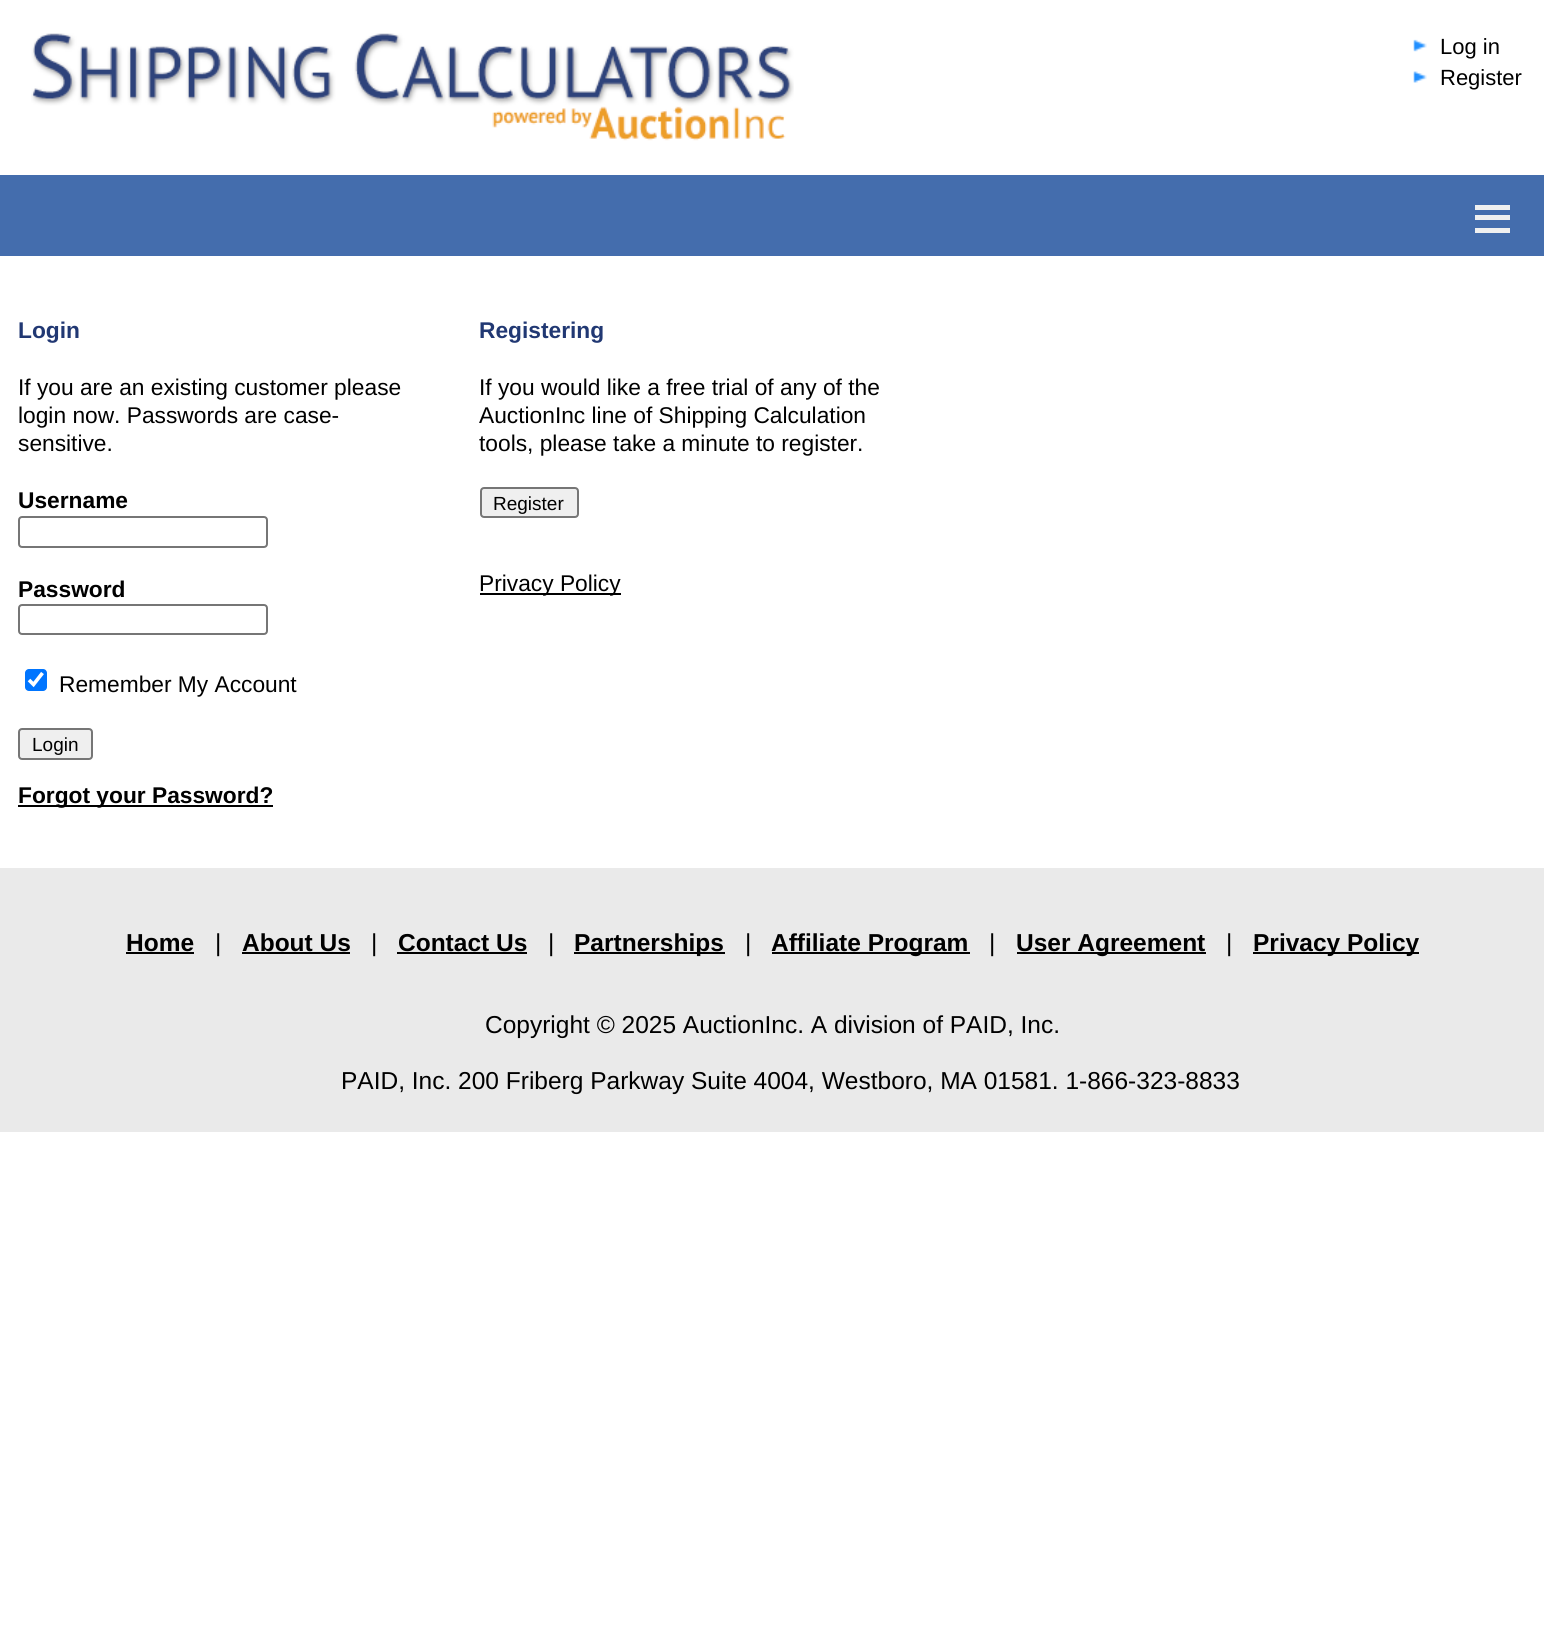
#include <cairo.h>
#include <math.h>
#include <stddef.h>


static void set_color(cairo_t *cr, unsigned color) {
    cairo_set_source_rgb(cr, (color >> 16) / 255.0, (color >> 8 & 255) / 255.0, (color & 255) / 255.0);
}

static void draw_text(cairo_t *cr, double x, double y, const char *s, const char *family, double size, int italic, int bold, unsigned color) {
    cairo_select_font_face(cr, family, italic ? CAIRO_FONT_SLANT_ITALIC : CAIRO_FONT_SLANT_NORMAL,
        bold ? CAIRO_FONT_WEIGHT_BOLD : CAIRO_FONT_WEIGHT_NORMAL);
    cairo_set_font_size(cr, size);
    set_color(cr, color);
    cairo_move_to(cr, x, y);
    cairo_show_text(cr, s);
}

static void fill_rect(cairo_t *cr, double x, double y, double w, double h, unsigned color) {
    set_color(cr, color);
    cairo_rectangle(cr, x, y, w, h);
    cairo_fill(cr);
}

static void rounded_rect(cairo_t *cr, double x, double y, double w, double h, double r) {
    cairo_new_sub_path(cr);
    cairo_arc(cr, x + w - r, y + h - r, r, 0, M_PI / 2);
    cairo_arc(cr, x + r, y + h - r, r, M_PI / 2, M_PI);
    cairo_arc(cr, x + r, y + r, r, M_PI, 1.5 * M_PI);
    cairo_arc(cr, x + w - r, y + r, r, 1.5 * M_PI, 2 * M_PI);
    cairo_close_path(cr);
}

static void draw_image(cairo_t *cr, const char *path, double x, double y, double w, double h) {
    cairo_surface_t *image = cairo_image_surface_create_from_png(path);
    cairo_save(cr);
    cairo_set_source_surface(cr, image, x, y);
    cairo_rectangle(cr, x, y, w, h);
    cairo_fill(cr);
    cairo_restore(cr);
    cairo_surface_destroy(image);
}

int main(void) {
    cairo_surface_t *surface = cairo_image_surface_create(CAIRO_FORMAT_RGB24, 1544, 1645);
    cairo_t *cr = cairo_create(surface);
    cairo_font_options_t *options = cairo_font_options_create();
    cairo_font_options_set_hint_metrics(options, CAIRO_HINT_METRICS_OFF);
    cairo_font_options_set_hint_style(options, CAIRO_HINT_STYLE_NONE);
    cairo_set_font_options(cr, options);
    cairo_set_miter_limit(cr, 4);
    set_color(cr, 0xFFFFFF);
    cairo_paint(cr);
    draw_image(cr, "assets/img1.png", 31, 33, 763, 108);
    draw_image(cr, "assets/img2.png", 1413, 39, 14, 13);
    draw_text(cr, 1440, 54, "Log in", "Liberation Sans", 22, 0, 0, 0x000000);
    draw_image(cr, "assets/img3.png", 1413, 71, 14, 12);
    draw_text(cr, 1440, 85, "Register", "Liberation Sans", 22, 0, 0, 0x000000);
    fill_rect(cr, 0, 175, 1544, 81, 0x446DAD);
    fill_rect(cr, 1475, 205, 35, 5, 0xF0F0F0);
    fill_rect(cr, 1475, 215, 35, 5, 0xF0F0F0);
    fill_rect(cr, 1475, 228, 35, 5, 0xF0F0F0);
    draw_text(cr, 18, 338, "Login", "Liberation Sans", 22.75, 0, 1, 0x213873);
    draw_text(cr, 18, 395, "If you are an existing customer please", "Liberation Sans", 22.75, 0, 0, 0x000000);
    draw_text(cr, 18, 423, "login now. Passwords are case-", "Liberation Sans", 22.75, 0, 0, 0x000000);
    draw_text(cr, 18, 451, "sensitive.", "Liberation Sans", 22.75, 0, 0, 0x000000);
    draw_text(cr, 18, 508, "Username", "Liberation Sans", 22.75, 0, 1, 0x000000);
    rounded_rect(cr, 19, 517, 248, 30, 3);
    set_color(cr, 0x767676);
    cairo_stroke(cr);
    draw_text(cr, 18, 597, "Password", "Liberation Sans", 22.75, 0, 1, 0x000000);
    rounded_rect(cr, 19, 605, 248, 29, 3);
    set_color(cr, 0x767676);
    cairo_stroke(cr);
    set_color(cr, 0x0075FF);
    rounded_rect(cr, 25, 669, 22, 22, 4);
    cairo_fill(cr);
    cairo_new_path(cr);
    cairo_move_to(cr, 29, 680);
    cairo_line_to(cr, 33.5, 684.5);
    cairo_line_to(cr, 42.5, 673);
    set_color(cr, 0xFFFFFF);
    cairo_set_line_width(cr, 3.6);
    cairo_stroke(cr);
    draw_text(cr, 59, 692, "Remember My Account", "Liberation Sans", 22.75, 0, 0, 0x000000);
    set_color(cr, 0xEFEFEF);
    rounded_rect(cr, 19, 729, 73, 30, 3);
    cairo_fill_preserve(cr);
    set_color(cr, 0x767676);
    cairo_set_line_width(cr, 2);
    cairo_stroke(cr);
    draw_text(cr, 32, 751, "Login", "Liberation Sans", 19, 0, 0, 0x000000);
    fill_rect(cr, 18, 805, 255, 2, 0x000000);
    draw_text(cr, 18, 803, "Forgot your Password?", "Liberation Sans", 22.75, 0, 1, 0x000000);
    draw_text(cr, 479, 338, "Registering", "Liberation Sans", 22.75, 0, 1, 0x213873);
    draw_text(cr, 479, 395, "If you would like a free trial of any of the", "Liberation Sans", 22.75, 0, 0, 0x000000);
    draw_text(cr, 479, 423, "AuctionInc line of Shipping Calculation", "Liberation Sans", 22.75, 0, 0, 0x000000);
    draw_text(cr, 479, 451, "tools, please take a minute to register.", "Liberation Sans", 22.75, 0, 0, 0x000000);
    set_color(cr, 0xEFEFEF);
    rounded_rect(cr, 481, 488, 97, 29, 3);
    cairo_fill_preserve(cr);
    set_color(cr, 0x767676);
    cairo_stroke(cr);
    draw_text(cr, 493, 510, "Register", "Liberation Sans", 19, 0, 0, 0x000000);
    fill_rect(cr, 480, 593, 141, 2, 0x000000);
    draw_text(cr, 479, 591, "Privacy Policy", "Liberation Sans", 22.75, 0, 0, 0x000000);
    fill_rect(cr, 0, 868, 1544, 264, 0xEAEAEA);
    draw_text(cr, 126, 951, "Home", "Liberation Sans", 24.5, 0, 1, 0x000000);
    fill_rect(cr, 126, 952, 68, 2, 0x000000);
    draw_text(cr, 215, 951, "|", "Liberation Sans", 24.5, 0, 0, 0x000000);
    draw_text(cr, 242, 951, "About Us", "Liberation Sans", 24.5, 0, 1, 0x000000);
    fill_rect(cr, 242, 952, 108, 2, 0x000000);
    draw_text(cr, 371, 951, "|", "Liberation Sans", 24.5, 0, 0, 0x000000);
    draw_text(cr, 398, 951, "Contact Us", "Liberation Sans", 24.5, 0, 1, 0x000000);
    fill_rect(cr, 397, 952, 130, 2, 0x000000);
    draw_text(cr, 548, 951, "|", "Liberation Sans", 24.5, 0, 0, 0x000000);
    fill_rect(cr, 574, 952, 151, 2, 0x000000);
    draw_text(cr, 574, 951, "Partnerships", "Liberation Sans", 24.5, 0, 1, 0x000000);
    draw_text(cr, 745, 951, "|", "Liberation Sans", 24.5, 0, 0, 0x000000);
    fill_rect(cr, 772, 952, 198, 2, 0x000000);
    draw_text(cr, 771, 951, "Affiliate Program", "Liberation Sans", 24.5, 0, 1, 0x000000);
    draw_text(cr, 989, 951, "|", "Liberation Sans", 24.5, 0, 0, 0x000000);
    fill_rect(cr, 1017, 952, 189, 2, 0x000000);
    draw_text(cr, 1016, 951, "User Agreement", "Liberation Sans", 24.5, 0, 1, 0x000000);
    draw_text(cr, 1226, 951, "|", "Liberation Sans", 24.5, 0, 0, 0x000000);
    fill_rect(cr, 1253, 952, 166, 2, 0x000000);
    draw_text(cr, 1253, 951, "Privacy Policy", "Liberation Sans", 24.5, 0, 1, 0x000000);
    draw_text(cr, 485, 1033, "Copyright © 2025 AuctionInc. A division of PAID, Inc.", "Liberation Sans", 24.5, 0, 0, 0x000000);
    draw_text(cr, 341, 1089, "PAID, Inc. 200 Friberg Parkway Suite 4004, Westboro, MA 01581. 1-866-323-8833", "Liberation Sans", 24.5, 0, 0, 0x000000);
    cairo_surface_write_to_png(surface, "output.png");
    cairo_font_options_destroy(options);
    cairo_destroy(cr);
    cairo_surface_destroy(surface);
    return 0;
}
